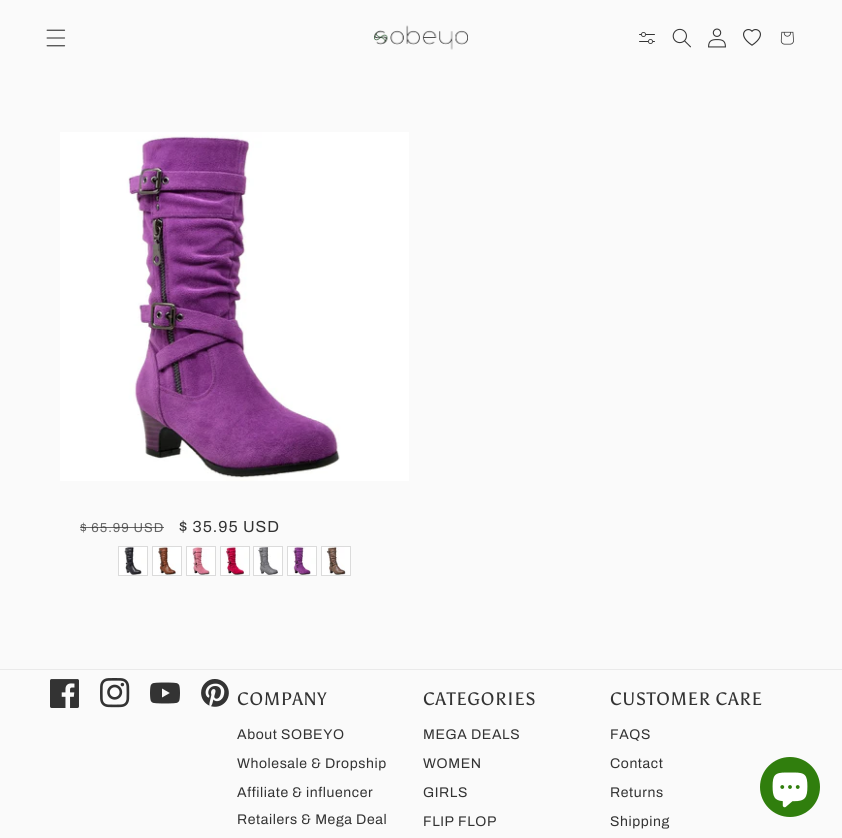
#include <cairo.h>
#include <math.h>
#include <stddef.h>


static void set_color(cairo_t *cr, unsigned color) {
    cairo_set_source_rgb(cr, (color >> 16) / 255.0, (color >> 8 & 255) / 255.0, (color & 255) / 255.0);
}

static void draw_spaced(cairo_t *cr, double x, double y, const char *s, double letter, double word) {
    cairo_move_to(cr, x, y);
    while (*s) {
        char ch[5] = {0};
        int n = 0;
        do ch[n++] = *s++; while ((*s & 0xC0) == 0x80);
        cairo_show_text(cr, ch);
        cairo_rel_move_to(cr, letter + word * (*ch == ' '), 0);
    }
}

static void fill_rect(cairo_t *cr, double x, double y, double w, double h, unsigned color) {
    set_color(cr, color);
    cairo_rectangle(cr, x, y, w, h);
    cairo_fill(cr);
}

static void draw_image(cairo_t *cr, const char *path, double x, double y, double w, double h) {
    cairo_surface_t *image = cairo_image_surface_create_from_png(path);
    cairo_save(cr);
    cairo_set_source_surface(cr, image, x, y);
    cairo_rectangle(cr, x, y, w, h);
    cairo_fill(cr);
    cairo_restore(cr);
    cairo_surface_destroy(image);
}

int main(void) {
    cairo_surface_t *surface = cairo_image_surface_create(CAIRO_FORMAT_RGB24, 842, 838);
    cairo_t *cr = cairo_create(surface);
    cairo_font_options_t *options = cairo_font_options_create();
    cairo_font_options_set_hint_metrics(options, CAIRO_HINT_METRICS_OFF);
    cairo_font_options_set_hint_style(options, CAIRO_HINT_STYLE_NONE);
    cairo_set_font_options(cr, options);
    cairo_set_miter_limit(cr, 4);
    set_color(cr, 0xFAFAFA);
    cairo_paint(cr);
    draw_image(cr, "assets/img1.png", 46, 29, 20, 18);
    draw_image(cr, "assets/img2.png", 374, 25, 94, 25);
    draw_image(cr, "assets/img3.png", 639, 32, 16, 12);
    draw_image(cr, "assets/img4.png", 672, 28, 19, 20);
    draw_image(cr, "assets/img5.png", 708, 28, 18, 20);
    draw_image(cr, "assets/img6.png", 743, 29, 18, 17);
    draw_image(cr, "assets/img7.png", 780, 31, 14, 14);
    draw_image(cr, "assets/img8.png", 60, 132, 349, 349);
    cairo_select_font_face(cr, "Archivo", CAIRO_FONT_SLANT_NORMAL, CAIRO_FONT_WEIGHT_NORMAL);
    cairo_set_font_size(cr, 13);
    set_color(cr, 0x656565);
    draw_spaced(cr, 80, 532, "$ 65.99 USD", 1, 0);
    cairo_set_source_rgba(cr, 0.2, 0.2, 0.2, 0.75);
    cairo_rectangle(cr, 80, 527, 84, 1);
    cairo_fill(cr);
    cairo_set_font_size(cr, 16);
    set_color(cr, 0x333333);
    draw_spaced(cr, 179, 532, "$ 35.95 USD", 1, 0);
    cairo_rectangle(cr, 118.5, 546.5, 29, 29);
    set_color(cr, 0xDBDBDB);
    cairo_set_line_width(cr, 1);
    cairo_stroke(cr);
    draw_image(cr, "assets/img9.png", 119, 547, 28, 28);
    cairo_rectangle(cr, 152.5, 546.5, 29, 29);
    cairo_stroke(cr);
    draw_image(cr, "assets/img10.png", 153, 547, 28, 28);
    cairo_rectangle(cr, 186.5, 546.5, 29, 29);
    cairo_stroke(cr);
    draw_image(cr, "assets/img11.png", 187, 547, 28, 28);
    cairo_rectangle(cr, 220.5, 546.5, 29, 29);
    cairo_stroke(cr);
    draw_image(cr, "assets/img12.png", 221, 547, 28, 28);
    cairo_rectangle(cr, 253.5, 546.5, 29, 29);
    cairo_stroke(cr);
    draw_image(cr, "assets/img13.png", 254, 547, 28, 28);
    cairo_rectangle(cr, 287.5, 546.5, 29, 29);
    cairo_stroke(cr);
    draw_image(cr, "assets/img14.png", 288, 547, 28, 28);
    cairo_rectangle(cr, 321.5, 546.5, 29, 29);
    cairo_stroke(cr);
    draw_image(cr, "assets/img15.png", 322, 547, 28, 28);
    fill_rect(cr, 0, 669, 842, 1, 0xEAEAEA);
    draw_image(cr, "assets/img16.png", 50, 679, 29, 29);
    draw_image(cr, "assets/img17.png", 100, 678, 30, 30);
    draw_image(cr, "assets/img18.png", 150, 682, 30, 22);
    draw_image(cr, "assets/img19.png", 201, 679, 28, 28);
    cairo_select_font_face(cr, "Asul", CAIRO_FONT_SLANT_NORMAL, CAIRO_FONT_WEIGHT_NORMAL);
    cairo_set_font_size(cr, 18);
    set_color(cr, 0x333333);
    draw_spaced(cr, 237, 705, "COMPANY", 0.75, 0);
    cairo_select_font_face(cr, "Archivo", CAIRO_FONT_SLANT_NORMAL, CAIRO_FONT_WEIGHT_NORMAL);
    cairo_set_font_size(cr, 14);
    draw_spaced(cr, 237, 739, "About SOBEYO", 0.6, 0);
    draw_spaced(cr, 237, 768, "Wholesale & Dropship", 0.6, 0);
    draw_spaced(cr, 237, 797, "Affiliate & influencer", 0.6, 0);
    draw_spaced(cr, 237, 824, "Retailers & Mega Deal", 0.6, 0);
    cairo_select_font_face(cr, "Asul", CAIRO_FONT_SLANT_NORMAL, CAIRO_FONT_WEIGHT_NORMAL);
    cairo_set_font_size(cr, 18);
    draw_spaced(cr, 423, 705, "CATEGORIES", 0.75, 0);
    cairo_select_font_face(cr, "Archivo", CAIRO_FONT_SLANT_NORMAL, CAIRO_FONT_WEIGHT_NORMAL);
    cairo_set_font_size(cr, 14);
    draw_spaced(cr, 423, 739, "MEGA DEALS", 0.6, 0);
    draw_spaced(cr, 423, 768, "WOMEN", 0.6, 0);
    draw_spaced(cr, 423, 797, "GIRLS", 0.6, 0);
    draw_spaced(cr, 423, 826, "FLIP FLOP", 0.6, 0);
    cairo_select_font_face(cr, "Asul", CAIRO_FONT_SLANT_NORMAL, CAIRO_FONT_WEIGHT_NORMAL);
    cairo_set_font_size(cr, 18);
    draw_spaced(cr, 610, 705, "CUSTOMER CARE", 0.75, 0);
    cairo_select_font_face(cr, "Archivo", CAIRO_FONT_SLANT_NORMAL, CAIRO_FONT_WEIGHT_NORMAL);
    cairo_set_font_size(cr, 14);
    draw_spaced(cr, 610, 739, "FAQS", 0.6, 0);
    draw_spaced(cr, 610, 768, "Contact", 0.6, 0);
    draw_spaced(cr, 610, 797, "Returns", 0.6, 0);
    draw_spaced(cr, 610, 826, "Shipping", 0.6, 0);
    set_color(cr, 0x307E0D);
    cairo_new_path(cr);
    cairo_arc(cr, 790, 787, 30, 0, 2 * M_PI);
    cairo_fill(cr);
    draw_image(cr, "assets/img20.png", 772, 772, 36, 36);
    cairo_surface_write_to_png(surface, "output.png");
    cairo_font_options_destroy(options);
    cairo_destroy(cr);
    cairo_surface_destroy(surface);
    return 0;
}
